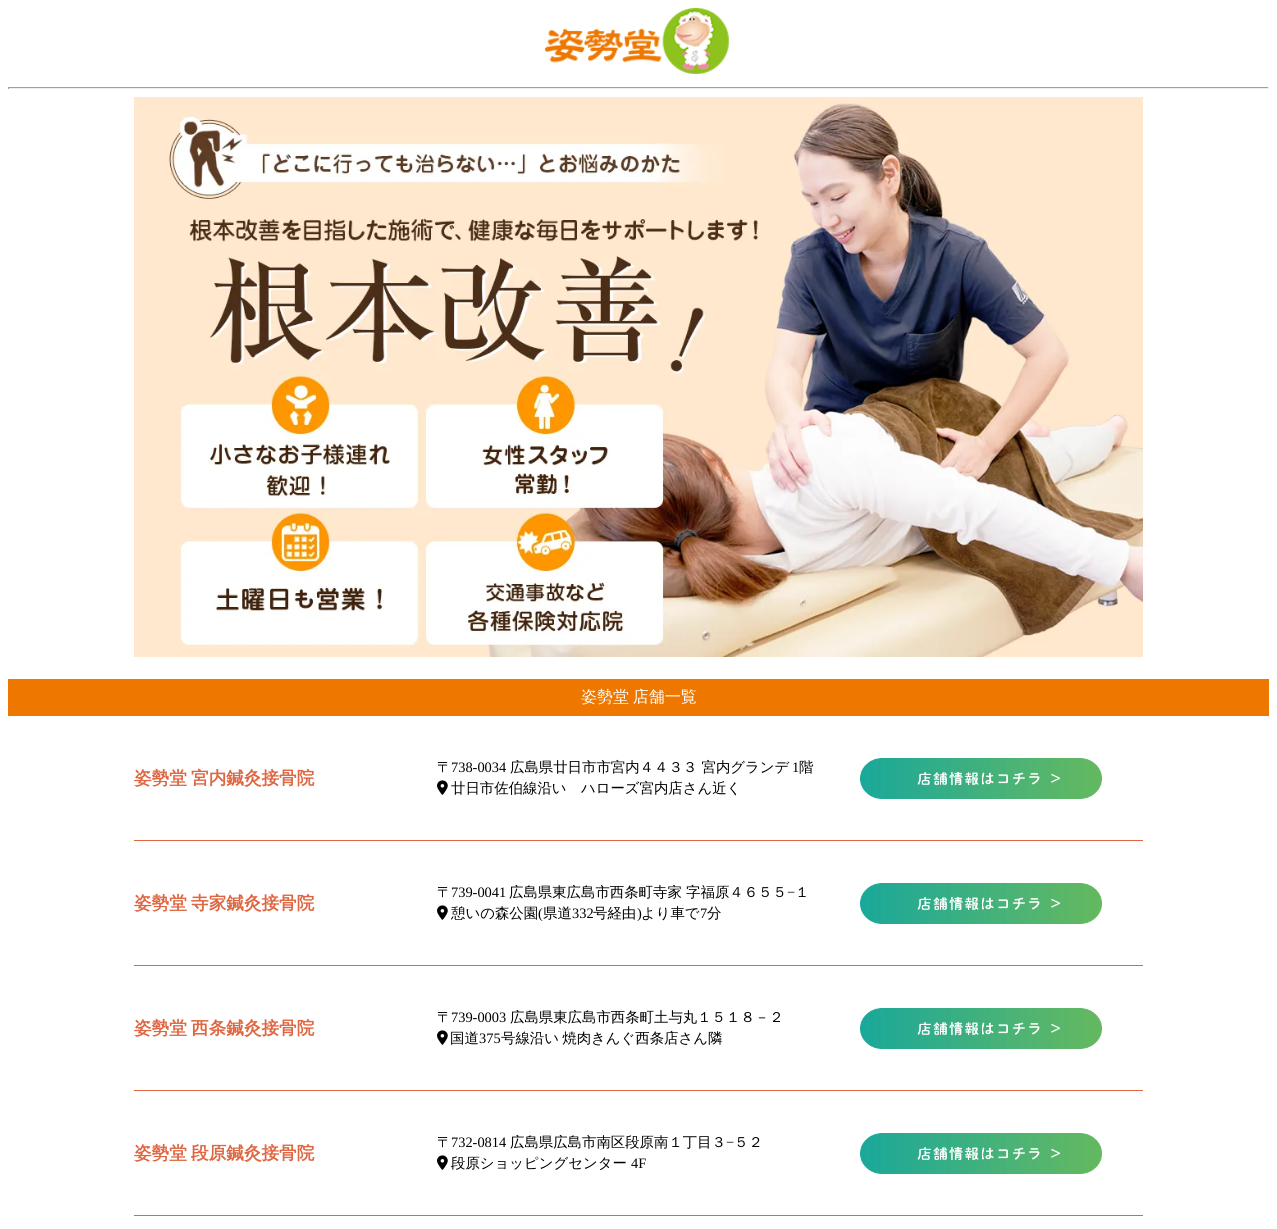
#include <cairo.h>
#include <math.h>
#include <stddef.h>


static void set_color(cairo_t *cr, unsigned color) {
    cairo_set_source_rgb(cr, (color >> 16) / 255.0, (color >> 8 & 255) / 255.0, (color & 255) / 255.0);
}

static void draw_text(cairo_t *cr, double x, double y, const char *s, const char *family, double size, int italic, int bold, unsigned color) {
    cairo_select_font_face(cr, family, italic ? CAIRO_FONT_SLANT_ITALIC : CAIRO_FONT_SLANT_NORMAL,
        bold ? CAIRO_FONT_WEIGHT_BOLD : CAIRO_FONT_WEIGHT_NORMAL);
    cairo_set_font_size(cr, size);
    set_color(cr, color);
    cairo_move_to(cr, x, y);
    cairo_show_text(cr, s);
}

static void draw_spaced(cairo_t *cr, double x, double y, const char *s, double letter, double word) {
    cairo_move_to(cr, x, y);
    while (*s) {
        char ch[5] = {0};
        int n = 0;
        do ch[n++] = *s++; while ((*s & 0xC0) == 0x80);
        cairo_show_text(cr, ch);
        cairo_rel_move_to(cr, letter + word * (*ch == ' '), 0);
    }
}

static void fill_rect(cairo_t *cr, double x, double y, double w, double h, unsigned color) {
    set_color(cr, color);
    cairo_rectangle(cr, x, y, w, h);
    cairo_fill(cr);
}

static void draw_image(cairo_t *cr, const char *path, double x, double y, double w, double h) {
    cairo_surface_t *image = cairo_image_surface_create_from_png(path);
    cairo_save(cr);
    cairo_set_source_surface(cr, image, x, y);
    cairo_rectangle(cr, x, y, w, h);
    cairo_fill(cr);
    cairo_restore(cr);
    cairo_surface_destroy(image);
}

int main(void) {
    cairo_surface_t *surface = cairo_image_surface_create(CAIRO_FORMAT_RGB24, 1277, 1229);
    cairo_t *cr = cairo_create(surface);
    cairo_font_options_t *options = cairo_font_options_create();
    cairo_font_options_set_hint_metrics(options, CAIRO_HINT_METRICS_OFF);
    cairo_font_options_set_hint_style(options, CAIRO_HINT_STYLE_NONE);
    cairo_set_font_options(cr, options);
    cairo_set_miter_limit(cr, 4);
    set_color(cr, 0xFFFFFF);
    cairo_paint(cr);
    draw_image(cr, "assets/img1.png", 545, 8, 184, 66);
    fill_rect(cr, 8, 87, 1261, 1, 0x9F9F9F);
    fill_rect(cr, 1268, 87, 1, 2, 0xEEEEEE);
    fill_rect(cr, 8, 88, 1261, 1, 0xEEEEEE);
    fill_rect(cr, 8, 87, 1, 2, 0x9F9F9F);
    draw_image(cr, "assets/img2.png", 134, 97, 1009, 560);
    fill_rect(cr, 8, 679, 1261, 37, 0xEE7700);
    cairo_select_font_face(cr, "WenQuanYi Zen Hei Medium", CAIRO_FONT_SLANT_NORMAL, CAIRO_FONT_WEIGHT_NORMAL);
    cairo_set_font_size(cr, 16);
    set_color(cr, 0xFFFFFF);
    draw_spaced(cr, 581, 702, "姿勢堂 店舗一覧", 0, -1);
    fill_rect(cr, 134, 840, 1009, 1, 0xDE6641);
    cairo_select_font_face(cr, "WenQuanYi Zen Hei", CAIRO_FONT_SLANT_NORMAL, CAIRO_FONT_WEIGHT_BOLD);
    cairo_set_font_size(cr, 17.6);
    draw_spaced(cr, 134, 784, "姿勢堂 宮内鍼灸接骨院", 0, -1);
    draw_text(cr, 437, 772, "〒", "WenQuanYi Zen Hei Medium", 14.4, 0, 0, 0x000000);
    draw_text(cr, 451, 772, "738-0034", "Liberation Serif", 14.4, 0, 0, 0x000000);
    draw_text(cr, 510, 772, "広島県廿日市市宮内４４３３ 宮内グランデ", "WenQuanYi Zen Hei Medium", 14.4, 0, 0, 0x000000);
    draw_text(cr, 792, 772, "1", "Liberation Serif", 14.4, 0, 0, 0x000000);
    draw_text(cr, 799, 772, "階", "WenQuanYi Zen Hei Medium", 14.4, 0, 0, 0x000000);
    draw_image(cr, "assets/img3.png", 437, 780, 11, 15);
    draw_text(cr, 451, 793, "廿日市佐伯線沿い　ハローズ宮内店さん近く", "WenQuanYi Zen Hei Medium", 14.4, 0, 0, 0x000000);
    draw_image(cr, "assets/img4.png", 860, 758, 242, 41);
    fill_rect(cr, 134, 965, 1009, 1, 0xDE6641);
    cairo_select_font_face(cr, "WenQuanYi Zen Hei", CAIRO_FONT_SLANT_NORMAL, CAIRO_FONT_WEIGHT_BOLD);
    cairo_set_font_size(cr, 17.6);
    draw_spaced(cr, 134, 909, "姿勢堂 寺家鍼灸接骨院", 0, -1);
    draw_text(cr, 437, 897, "〒", "WenQuanYi Zen Hei Medium", 14.4, 0, 0, 0x000000);
    draw_text(cr, 451, 897, "739-0041", "Liberation Serif", 14.4, 0, 0, 0x000000);
    draw_text(cr, 509, 897, "広島県東広島市西条町寺家 字福原４６５５", "WenQuanYi Zen Hei Medium", 14.4, 0, 0, 0x000000);
    draw_text(cr, 787, 897, "−", "Liberation Serif", 14.4, 0, 0, 0x000000);
    draw_text(cr, 795, 897, "１", "WenQuanYi Zen Hei Medium", 14.4, 0, 0, 0x000000);
    draw_image(cr, "assets/img3.png", 437, 905, 11, 15);
    draw_text(cr, 451, 918, "憩いの森公園", "WenQuanYi Zen Hei Medium", 14.4, 0, 0, 0x000000);
    draw_text(cr, 538, 918, "(", "Liberation Serif", 14.4, 0, 0, 0x000000);
    draw_text(cr, 543, 918, "県道", "WenQuanYi Zen Hei Medium", 14.4, 0, 0, 0x000000);
    draw_text(cr, 572, 918, "332", "Liberation Serif", 14.4, 0, 0, 0x000000);
    draw_text(cr, 593, 918, "号経由", "WenQuanYi Zen Hei Medium", 14.4, 0, 0, 0x000000);
    draw_text(cr, 637, 918, ")", "Liberation Serif", 14.4, 0, 0, 0x000000);
    draw_text(cr, 641, 918, "より車で", "WenQuanYi Zen Hei Medium", 14.4, 0, 0, 0x000000);
    draw_text(cr, 700, 918, "7", "Liberation Serif", 14.4, 0, 0, 0x000000);
    draw_text(cr, 707, 918, "分", "WenQuanYi Zen Hei Medium", 14.4, 0, 0, 0x000000);
    draw_image(cr, "assets/img4.png", 860, 883, 242, 41);
    fill_rect(cr, 134, 1090, 1009, 1, 0xDE6641);
    cairo_select_font_face(cr, "WenQuanYi Zen Hei", CAIRO_FONT_SLANT_NORMAL, CAIRO_FONT_WEIGHT_BOLD);
    cairo_set_font_size(cr, 17.6);
    draw_spaced(cr, 134, 1034, "姿勢堂 西条鍼灸接骨院", 0, -1);
    draw_text(cr, 437, 1022, "〒", "WenQuanYi Zen Hei Medium", 14.4, 0, 0, 0x000000);
    draw_text(cr, 451, 1022, "739-0003", "Liberation Serif", 14.4, 0, 0, 0x000000);
    draw_text(cr, 510, 1022, "広島県東広島市西条町土与丸１５１８－２", "WenQuanYi Zen Hei Medium", 14.4, 0, 0, 0x000000);
    draw_image(cr, "assets/img3.png", 437, 1030, 11, 15);
    draw_text(cr, 450, 1043, "国道", "WenQuanYi Zen Hei Medium", 14.4, 0, 0, 0x000000);
    draw_text(cr, 479, 1043, "375", "Liberation Serif", 14.4, 0, 0, 0x000000);
    cairo_select_font_face(cr, "WenQuanYi Zen Hei Medium", CAIRO_FONT_SLANT_NORMAL, CAIRO_FONT_WEIGHT_NORMAL);
    draw_spaced(cr, 501, 1043, "号線沿い 焼肉きんぐ西条店さん隣", 0, -1);
    draw_image(cr, "assets/img4.png", 860, 1008, 242, 41);
    fill_rect(cr, 134, 1215, 1009, 1, 0xDE6641);
    cairo_select_font_face(cr, "WenQuanYi Zen Hei", CAIRO_FONT_SLANT_NORMAL, CAIRO_FONT_WEIGHT_BOLD);
    cairo_set_font_size(cr, 17.6);
    draw_spaced(cr, 134, 1159, "姿勢堂 段原鍼灸接骨院", 0, -1);
    draw_text(cr, 437, 1147, "〒", "WenQuanYi Zen Hei Medium", 14.4, 0, 0, 0x000000);
    draw_text(cr, 451, 1147, "732-0814", "Liberation Serif", 14.4, 0, 0, 0x000000);
    draw_text(cr, 510, 1147, "広島県広島市南区段原南１丁目３", "WenQuanYi Zen Hei Medium", 14.4, 0, 0, 0x000000);
    draw_text(cr, 726, 1147, "−", "Liberation Serif", 14.4, 0, 0, 0x000000);
    draw_text(cr, 734, 1147, "５２", "WenQuanYi Zen Hei Medium", 14.4, 0, 0, 0x000000);
    draw_image(cr, "assets/img3.png", 437, 1155, 11, 15);
    draw_text(cr, 451, 1168, "段原ショッピングセンター", "WenQuanYi Zen Hei Medium", 14.4, 0, 0, 0x000000);
    draw_text(cr, 631, 1168, "4F", "Liberation Serif", 14.4, 0, 0, 0x000000);
    draw_image(cr, "assets/img4.png", 860, 1133, 242, 41);
    cairo_surface_write_to_png(surface, "output.png");
    cairo_font_options_destroy(options);
    cairo_destroy(cr);
    cairo_surface_destroy(surface);
    return 0;
}
